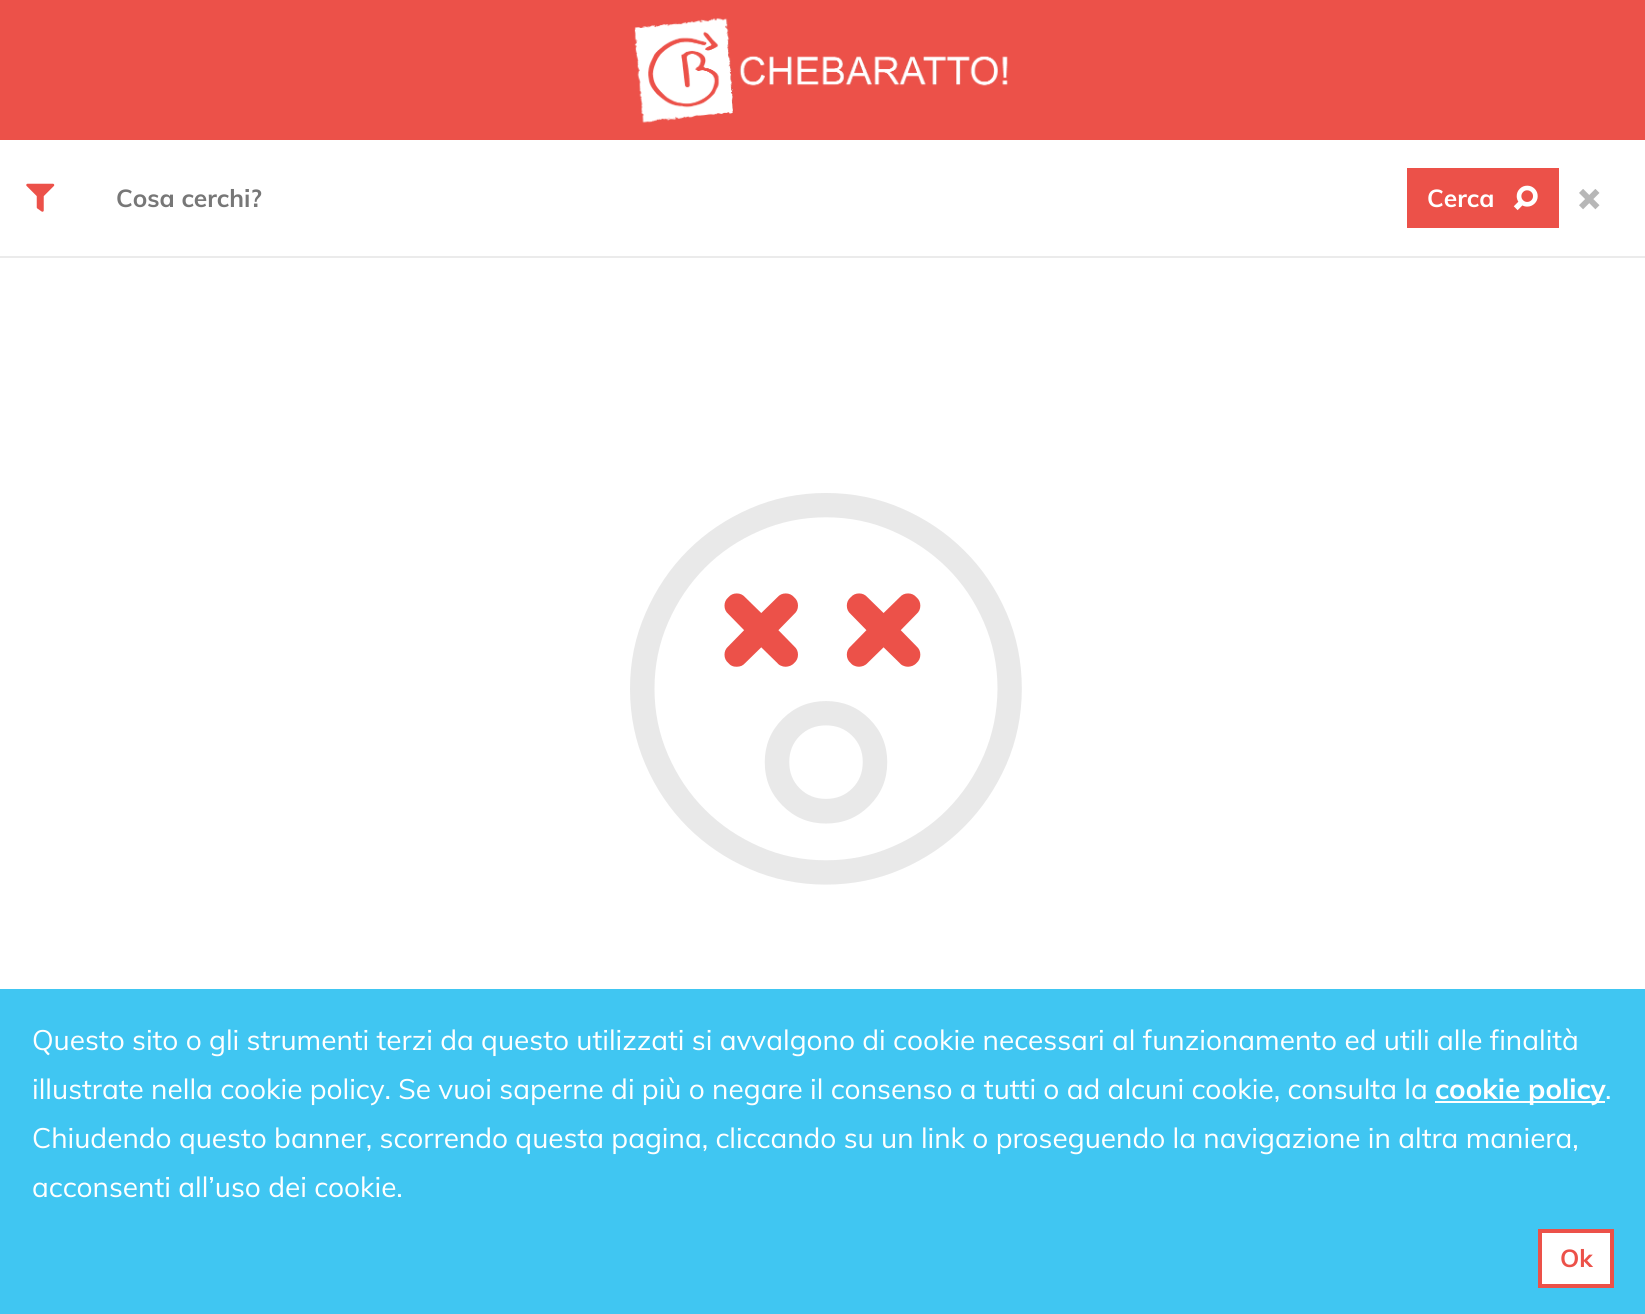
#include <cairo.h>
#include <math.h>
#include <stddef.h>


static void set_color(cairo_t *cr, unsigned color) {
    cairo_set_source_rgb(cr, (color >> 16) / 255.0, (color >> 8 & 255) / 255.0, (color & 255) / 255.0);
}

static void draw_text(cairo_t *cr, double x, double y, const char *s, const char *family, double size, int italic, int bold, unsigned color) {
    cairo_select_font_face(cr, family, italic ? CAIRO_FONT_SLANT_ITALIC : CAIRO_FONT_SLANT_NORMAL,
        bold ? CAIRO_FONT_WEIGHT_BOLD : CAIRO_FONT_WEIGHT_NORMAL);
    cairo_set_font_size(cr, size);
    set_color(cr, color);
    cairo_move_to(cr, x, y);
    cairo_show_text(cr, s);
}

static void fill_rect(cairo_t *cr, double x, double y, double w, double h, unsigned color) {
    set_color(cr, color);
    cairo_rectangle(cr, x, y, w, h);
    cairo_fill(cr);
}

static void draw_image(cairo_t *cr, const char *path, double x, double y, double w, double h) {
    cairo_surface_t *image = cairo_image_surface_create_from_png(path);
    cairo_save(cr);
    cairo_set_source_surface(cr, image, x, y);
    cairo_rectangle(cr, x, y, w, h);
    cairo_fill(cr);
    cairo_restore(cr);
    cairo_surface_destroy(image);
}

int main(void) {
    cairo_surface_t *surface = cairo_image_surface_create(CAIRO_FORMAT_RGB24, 1645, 1314);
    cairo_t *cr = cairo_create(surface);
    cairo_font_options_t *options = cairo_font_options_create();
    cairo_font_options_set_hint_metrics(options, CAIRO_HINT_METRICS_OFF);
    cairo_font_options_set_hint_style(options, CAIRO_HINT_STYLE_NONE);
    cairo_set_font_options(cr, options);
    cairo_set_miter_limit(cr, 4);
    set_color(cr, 0xFFFFFF);
    cairo_paint(cr);
    fill_rect(cr, 0, 0, 1645, 140, 0xEC5149);
    draw_image(cr, "assets/img1.png", 634, 18, 374, 105);
    fill_rect(cr, 0, 256, 1645, 2, 0xEBEBEB);
    draw_image(cr, "assets/img2.png", 26, 183, 29, 29);
    draw_text(cr, 116, 207, "Cosa cerchi?", "Muli", 24.5, 0, 1, 0x777777);
    fill_rect(cr, 1407, 168, 152, 60, 0xEC5149);
    draw_text(cr, 1427, 207, "Cerca", "Muli", 24.5, 0, 1, 0xFFFFFF);
    draw_image(cr, "assets/img3.png", 1513, 185, 25, 26);
    draw_image(cr, "assets/img4.png", 1579, 189, 21, 21);
    draw_image(cr, "assets/img5.png", 630, 493, 392, 392);
    fill_rect(cr, 0, 989, 1645, 325, 0x40C6F2);
    draw_text(cr, 32, 1050, "Questo sito o gli strumenti terzi da questo utilizzati si avvalgono di cookie necessari al funzionamento ed utili alle finalità", "Muli", 28, 0, 0, 0xFFFFFF);
    draw_text(cr, 32, 1099, "illustrate nella cookie policy. Se vuoi saperne di più o negare il consenso a tutti o ad alcuni cookie, consulta la", "Muli", 28, 0, 0, 0xFFFFFF);
    fill_rect(cr, 1435, 1101, 170, 2, 0xFFFFFF);
    draw_text(cr, 1435, 1099, "cookie policy", "Muli", 28, 0, 1, 0xFFFFFF);
    draw_text(cr, 1605, 1099, ".", "Muli", 28, 0, 0, 0xFFFFFF);
    draw_text(cr, 32, 1148, "Chiudendo questo banner, scorrendo questa pagina, cliccando su un link o proseguendo la navigazione in altra maniera,", "Muli", 28, 0, 0, 0xFFFFFF);
    draw_text(cr, 32, 1197, "acconsenti all’uso dei cookie.", "Muli", 28, 0, 0, 0xFFFFFF);
    cairo_rectangle(cr, 1540, 1231, 72, 55);
    cairo_fill_preserve(cr);
    set_color(cr, 0xEC5149);
    cairo_set_line_width(cr, 4);
    cairo_stroke(cr);
    draw_text(cr, 1560, 1267, "Ok", "Muli", 24.5, 0, 1, 0xEC5149);
    cairo_surface_write_to_png(surface, "output.png");
    cairo_font_options_destroy(options);
    cairo_destroy(cr);
    cairo_surface_destroy(surface);
    return 0;
}
